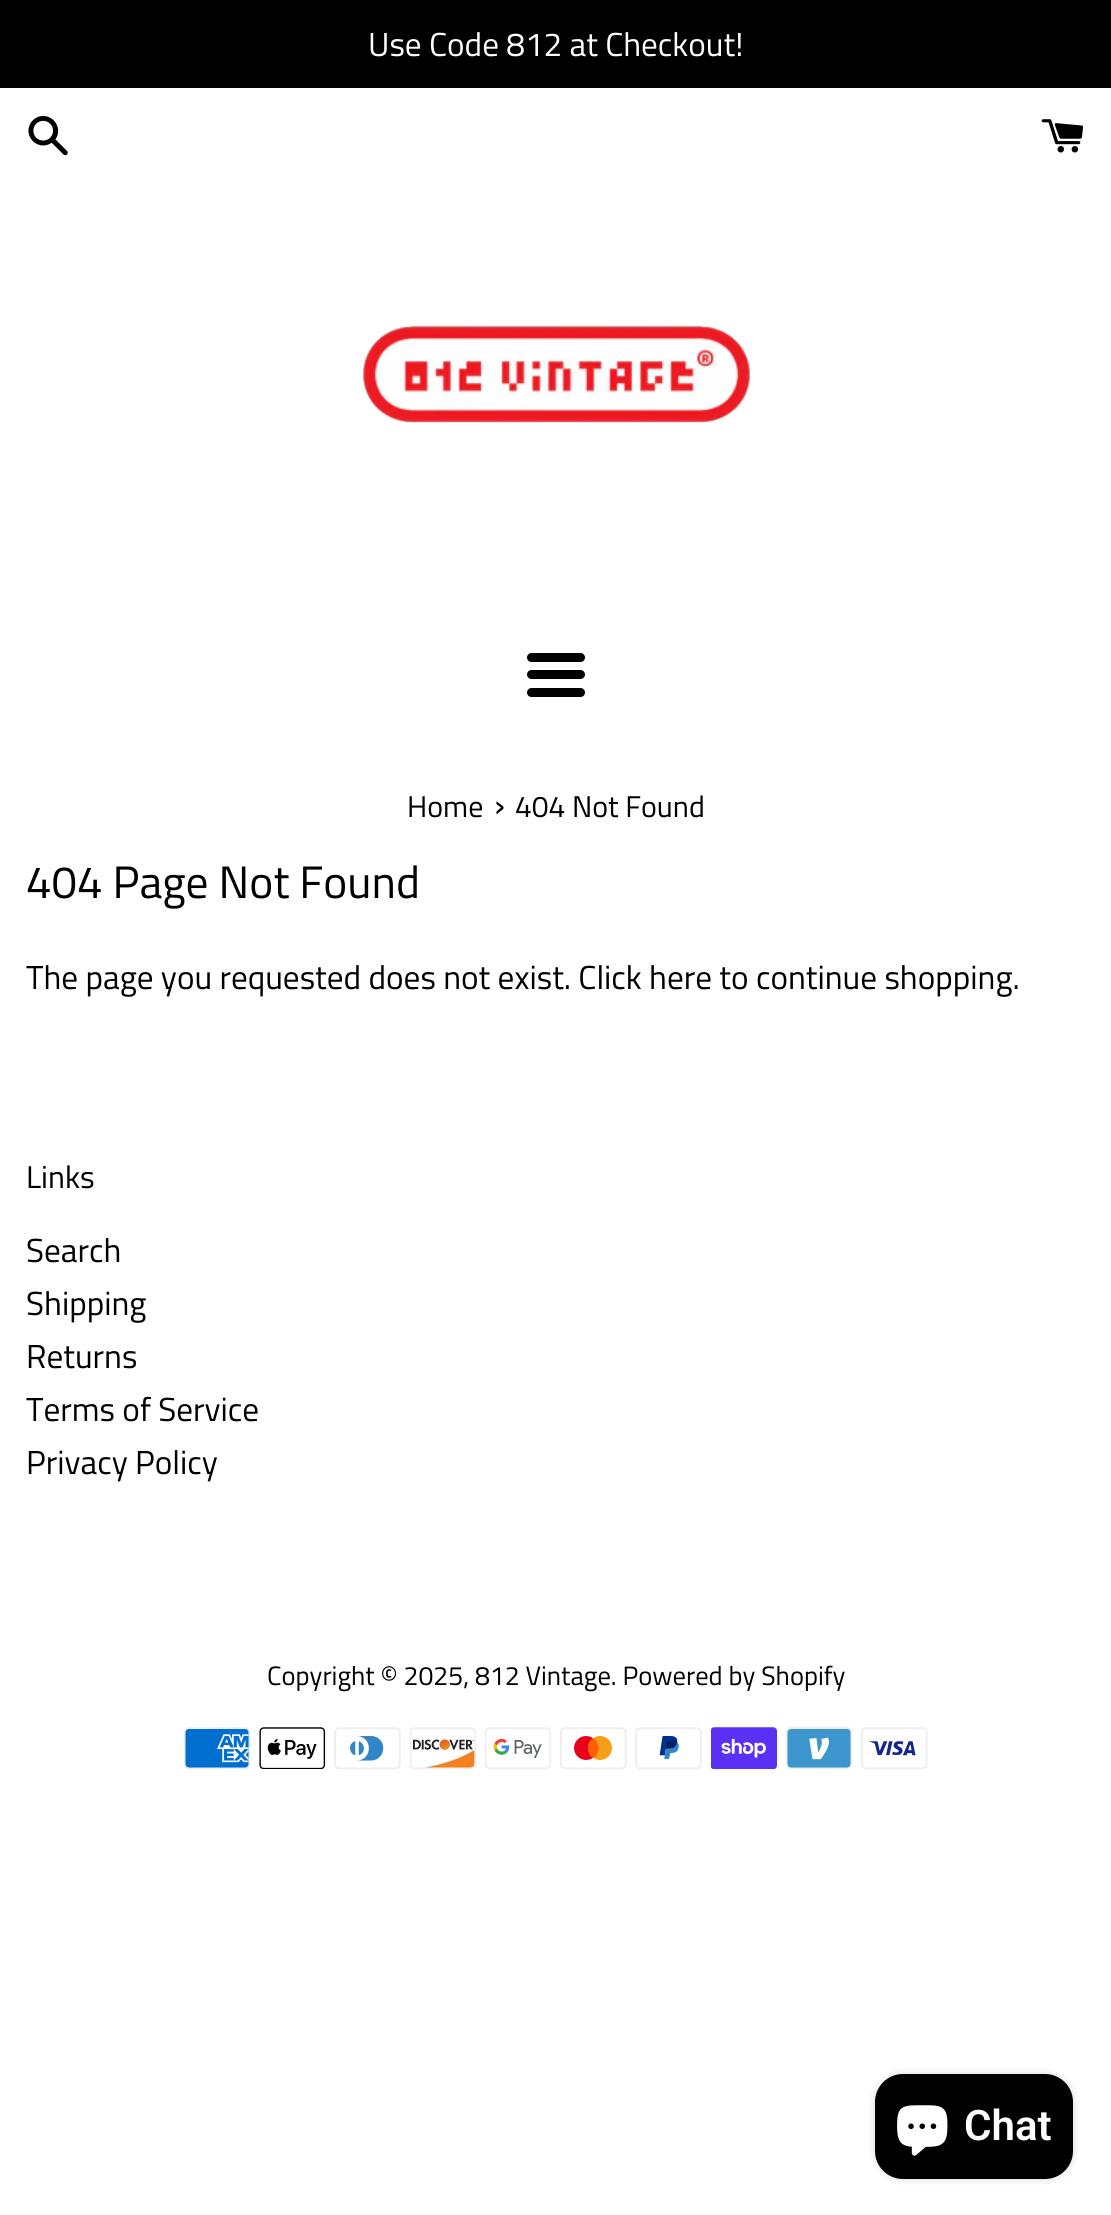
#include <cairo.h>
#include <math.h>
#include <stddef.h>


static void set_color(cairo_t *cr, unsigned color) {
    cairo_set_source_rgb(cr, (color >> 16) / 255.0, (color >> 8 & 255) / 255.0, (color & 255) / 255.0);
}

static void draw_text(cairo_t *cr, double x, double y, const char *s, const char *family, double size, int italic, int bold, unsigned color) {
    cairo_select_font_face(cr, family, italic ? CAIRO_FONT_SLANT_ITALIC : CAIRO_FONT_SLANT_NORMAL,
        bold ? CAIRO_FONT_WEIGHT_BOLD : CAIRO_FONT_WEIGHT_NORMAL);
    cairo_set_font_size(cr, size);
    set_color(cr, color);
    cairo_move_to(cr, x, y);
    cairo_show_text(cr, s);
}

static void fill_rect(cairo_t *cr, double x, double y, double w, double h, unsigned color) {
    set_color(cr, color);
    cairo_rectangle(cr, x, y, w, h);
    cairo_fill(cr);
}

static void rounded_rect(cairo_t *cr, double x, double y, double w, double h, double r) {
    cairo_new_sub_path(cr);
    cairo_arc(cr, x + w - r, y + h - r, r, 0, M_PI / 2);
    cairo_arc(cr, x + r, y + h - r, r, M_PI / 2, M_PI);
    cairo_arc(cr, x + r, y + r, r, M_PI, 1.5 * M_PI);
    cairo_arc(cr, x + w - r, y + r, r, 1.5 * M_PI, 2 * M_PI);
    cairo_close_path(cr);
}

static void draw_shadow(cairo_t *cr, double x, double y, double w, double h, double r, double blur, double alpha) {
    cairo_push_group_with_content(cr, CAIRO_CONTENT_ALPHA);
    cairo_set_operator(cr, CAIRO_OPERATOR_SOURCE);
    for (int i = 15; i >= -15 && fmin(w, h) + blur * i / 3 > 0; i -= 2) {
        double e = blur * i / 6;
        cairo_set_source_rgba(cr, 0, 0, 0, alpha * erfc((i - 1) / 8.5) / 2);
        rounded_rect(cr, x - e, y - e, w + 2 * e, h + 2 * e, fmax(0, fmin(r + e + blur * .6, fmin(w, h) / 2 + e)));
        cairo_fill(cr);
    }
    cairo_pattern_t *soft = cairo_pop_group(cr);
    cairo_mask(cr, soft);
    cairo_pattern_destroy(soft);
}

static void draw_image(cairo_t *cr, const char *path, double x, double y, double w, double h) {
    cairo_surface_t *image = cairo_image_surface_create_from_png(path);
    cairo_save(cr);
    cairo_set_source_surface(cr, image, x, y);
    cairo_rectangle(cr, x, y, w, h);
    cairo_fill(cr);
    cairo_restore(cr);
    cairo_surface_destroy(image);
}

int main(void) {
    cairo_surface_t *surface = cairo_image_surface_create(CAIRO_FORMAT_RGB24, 1111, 2215);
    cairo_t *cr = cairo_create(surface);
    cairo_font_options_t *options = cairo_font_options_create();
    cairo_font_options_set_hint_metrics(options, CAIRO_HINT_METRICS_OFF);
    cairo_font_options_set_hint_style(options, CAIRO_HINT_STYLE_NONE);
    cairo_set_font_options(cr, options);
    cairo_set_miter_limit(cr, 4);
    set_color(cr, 0xFFFFFF);
    cairo_paint(cr);
    fill_rect(cr, 0, 0, 1111, 88, 0x000000);
    draw_text(cr, 368, 56, "Use Code 812 at Checkout!", "Titillium Web", 33.25, 0, 0, 0xFFFFFF);
    draw_image(cr, "assets/img1.png", 28, 115, 40, 41);
    draw_image(cr, "assets/img2.png", 1041, 119, 42, 34);
    draw_image(cr, "assets/img3.png", 363, 325, 387, 98);
    set_color(cr, 0x000000);
    rounded_rect(cr, 527, 653, 58, 9, 4.5);
    cairo_fill(cr);
    rounded_rect(cr, 527, 670, 58, 9, 4.5);
    cairo_fill(cr);
    rounded_rect(cr, 527, 688, 58, 9, 4.5);
    cairo_fill(cr);
    draw_text(cr, 407, 817, "Home", "Titillium Web", 30, 0, 0, 0x000000);
    draw_text(cr, 494, 817, "›", "Titillium Web", 37, 0, 0, 0x000000);
    draw_text(cr, 515, 817, "404 Not Found", "Titillium Web", 30, 0, 0, 0x000000);
    draw_text(cr, 26, 898, "404 Page Not Found", "Titillium Web", 45.5, 0, 0, 0x000000);
    draw_text(cr, 26, 989, "The page you requested does not exist. Click here to continue shopping.", "Titillium Web", 33.25, 0, 0, 0x000000);
    draw_text(cr, 26, 1188, "Links", "Titillium Web", 31.5, 0, 0, 0x000000);
    draw_text(cr, 26, 1262, "Search", "Titillium Web", 33.25, 0, 0, 0x000000);
    draw_text(cr, 26, 1315, "Shipping", "Titillium Web", 33.25, 0, 0, 0x000000);
    draw_text(cr, 26, 1368, "Returns", "Titillium Web", 33.25, 0, 0, 0x000000);
    draw_text(cr, 26, 1421, "Terms of Service", "Titillium Web", 33.25, 0, 0, 0x000000);
    draw_text(cr, 26, 1474, "Privacy Policy", "Titillium Web", 33.25, 0, 0, 0x000000);
    draw_text(cr, 267, 1685, "Copyright © 2025, 812 Vintage. Powered by Shopify", "Titillium Web", 26.6, 0, 0, 0x000000);
    draw_image(cr, "assets/img4.png", 184, 1727, 66, 42);
    draw_image(cr, "assets/img5.png", 259, 1727, 67, 42);
    draw_image(cr, "assets/img6.png", 334, 1727, 67, 42);
    draw_image(cr, "assets/img7.png", 410, 1727, 66, 42);
    draw_image(cr, "assets/img8.png", 485, 1727, 66, 42);
    draw_image(cr, "assets/img9.png", 560, 1727, 67, 42);
    draw_image(cr, "assets/img10.png", 635, 1727, 67, 42);
    draw_image(cr, "assets/img11.png", 711, 1727, 66, 42);
    draw_image(cr, "assets/img12.png", 786, 1727, 66, 42);
    draw_image(cr, "assets/img13.png", 861, 1727, 67, 42);
    set_color(cr, 0x000000);
    draw_shadow(cr, 875, 2074, 198, 105, 28, 4.5, 0.15);
    set_color(cr, 0x000000);
    rounded_rect(cr, 875, 2074, 198, 105, 28);
    cairo_fill(cr);
    draw_image(cr, "assets/img14.png", 897, 2105, 51, 51);
    draw_text(cr, 964, 2140, "Chat", "Roboto SemiBold", 42, 0, 0, 0xFFFFFF);
    cairo_surface_write_to_png(surface, "output.png");
    cairo_font_options_destroy(options);
    cairo_destroy(cr);
    cairo_surface_destroy(surface);
    return 0;
}
